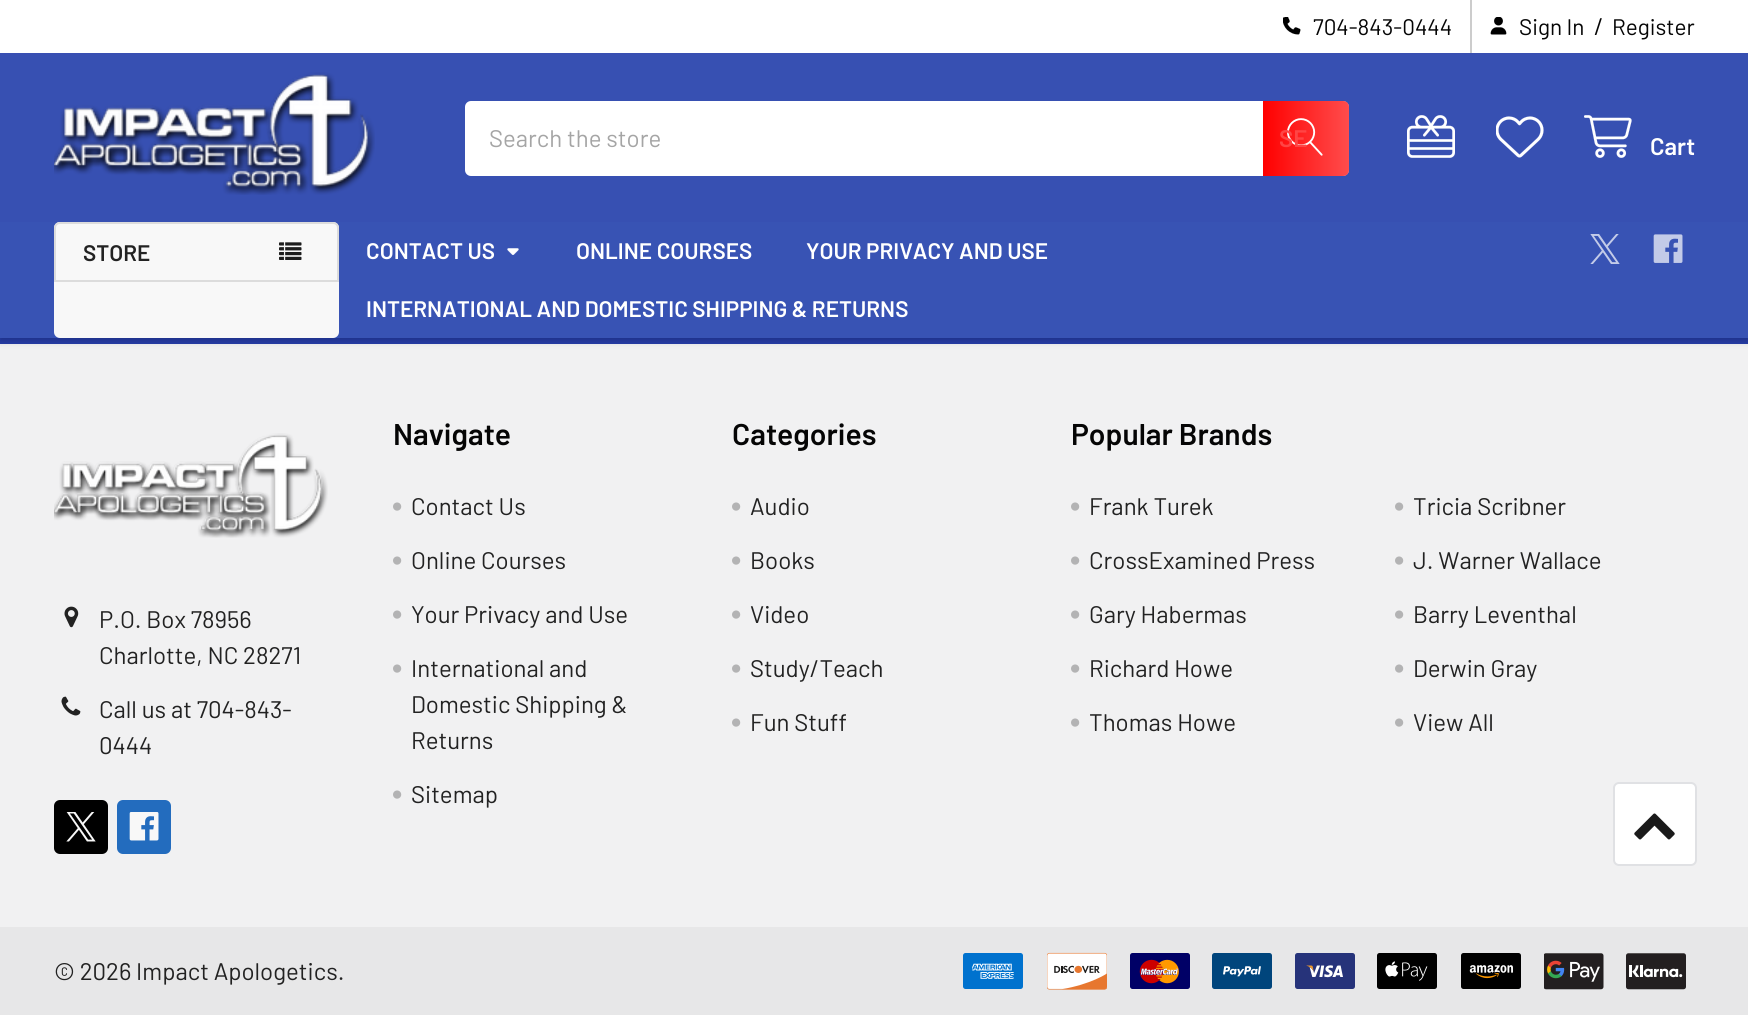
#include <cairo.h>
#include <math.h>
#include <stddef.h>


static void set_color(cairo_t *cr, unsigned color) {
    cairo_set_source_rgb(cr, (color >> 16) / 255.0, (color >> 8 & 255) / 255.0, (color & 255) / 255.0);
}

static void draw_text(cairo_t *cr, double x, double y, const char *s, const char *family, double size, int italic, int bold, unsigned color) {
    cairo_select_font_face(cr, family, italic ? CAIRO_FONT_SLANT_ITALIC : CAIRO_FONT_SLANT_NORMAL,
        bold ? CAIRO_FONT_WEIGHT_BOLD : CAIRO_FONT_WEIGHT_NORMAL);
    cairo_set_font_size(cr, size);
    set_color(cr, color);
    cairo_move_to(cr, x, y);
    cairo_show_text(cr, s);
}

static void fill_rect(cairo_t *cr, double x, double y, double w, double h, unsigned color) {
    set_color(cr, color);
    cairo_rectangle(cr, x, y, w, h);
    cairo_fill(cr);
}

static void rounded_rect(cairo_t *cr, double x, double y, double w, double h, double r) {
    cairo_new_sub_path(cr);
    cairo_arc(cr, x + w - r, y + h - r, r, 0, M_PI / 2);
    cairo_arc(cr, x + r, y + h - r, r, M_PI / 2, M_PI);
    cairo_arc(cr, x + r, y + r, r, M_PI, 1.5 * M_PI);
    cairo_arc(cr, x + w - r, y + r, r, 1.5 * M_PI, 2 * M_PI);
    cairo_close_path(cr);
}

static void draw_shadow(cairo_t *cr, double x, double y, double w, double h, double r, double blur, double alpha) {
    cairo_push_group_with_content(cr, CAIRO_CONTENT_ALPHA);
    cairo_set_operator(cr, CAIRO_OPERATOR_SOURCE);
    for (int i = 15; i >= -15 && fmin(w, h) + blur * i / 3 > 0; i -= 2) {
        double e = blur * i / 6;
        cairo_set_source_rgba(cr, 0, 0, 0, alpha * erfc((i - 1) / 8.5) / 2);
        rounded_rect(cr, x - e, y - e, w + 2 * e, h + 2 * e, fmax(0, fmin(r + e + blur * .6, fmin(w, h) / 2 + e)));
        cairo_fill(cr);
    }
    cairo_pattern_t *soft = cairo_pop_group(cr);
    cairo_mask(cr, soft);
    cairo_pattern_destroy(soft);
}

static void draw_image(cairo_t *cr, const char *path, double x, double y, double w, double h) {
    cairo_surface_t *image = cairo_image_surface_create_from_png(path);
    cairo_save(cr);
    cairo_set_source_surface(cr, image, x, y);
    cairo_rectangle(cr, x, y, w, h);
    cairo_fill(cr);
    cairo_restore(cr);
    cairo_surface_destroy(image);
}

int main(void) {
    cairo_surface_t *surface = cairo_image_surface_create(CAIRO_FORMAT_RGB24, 1748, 1015);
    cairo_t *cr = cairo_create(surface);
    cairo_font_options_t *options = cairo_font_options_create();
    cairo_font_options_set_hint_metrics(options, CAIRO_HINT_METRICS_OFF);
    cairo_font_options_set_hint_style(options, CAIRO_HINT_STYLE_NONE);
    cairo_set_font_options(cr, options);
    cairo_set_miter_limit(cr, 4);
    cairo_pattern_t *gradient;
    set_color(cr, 0xF1F1F2);
    cairo_paint(cr);
    fill_rect(cr, 0, 338, 1748, 6, 0x263DA8);
    set_color(cr, 0x000000);
    draw_shadow(cr, 0, 3, 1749, 338, 0, 4, 0.2);
    fill_rect(cr, 0, 55, 1748, 167, 0x3750B2);
    fill_rect(cr, 0, 0, 1748, 53, 0xFFFFFF);
    fill_rect(cr, 0, 53, 1748, 2, 0x384FB2);
    draw_image(cr, "assets/img1.png", 1283, 17, 18, 18);
    draw_text(cr, 1313, 35, "704-843-0444", "Barlow", 22.5, 0, 0, 0x050505);
    fill_rect(cr, 1470, 0, 2, 53, 0xCCCCCC);
    draw_image(cr, "assets/img2.png", 1490, 17, 17, 18);
    draw_text(cr, 1519, 35, "Sign In", "Barlow", 22.5, 0, 0, 0x050505);
    draw_text(cr, 1594, 35, "/", "Barlow", 24, 0, 0, 0x050505);
    draw_text(cr, 1612, 35, "Register", "Barlow", 22.5, 0, 0, 0x050505);
    draw_image(cr, "assets/img3.png", 54, 72, 321, 123);
    set_color(cr, 0xFFFFFF);
    rounded_rect(cr, 465, 101, 884, 75, 6);
    cairo_fill(cr);
    gradient = cairo_pattern_create_linear(1263, 138, 1349, 138);
    cairo_pattern_add_color_stop_rgba(gradient, 0, 1, 0, 0, 1);
    cairo_pattern_add_color_stop_rgba(gradient, 1, 1, 0, 0, 0.7);
    cairo_set_source(cr, gradient);
    cairo_pattern_destroy(gradient);
    cairo_new_path(cr);
    cairo_move_to(cr, 1263, 101);
    cairo_line_to(cr, 1343, 101);
    cairo_curve_to(cr, 1346.5, 101, 1349, 103.5, 1349, 107);
    cairo_line_to(cr, 1349, 170);
    cairo_curve_to(cr, 1349, 173.5, 1346.5, 176, 1343, 176);
    cairo_line_to(cr, 1263, 176);
    cairo_close_path(cr);
    cairo_fill(cr);
    draw_image(cr, "assets/img4.png", 1287, 118, 36, 38);
    draw_text(cr, 489, 147, "Search the store", "Barlow", 24, 0, 0, 0xA5A5A5);
    draw_text(cr, 1279, 147, "SE", "Barlow SemiBold", 24, 0, 0, 0xFF4545);
    draw_image(cr, "assets/img5.png", 1407, 115, 48, 43);
    draw_image(cr, "assets/img6.png", 1496, 116, 48, 42);
    draw_image(cr, "assets/img7.png", 1584, 115, 48, 43);
    draw_text(cr, 1650, 155, "Cart", "Barlow SemiBold", 24, 0, 0, 0xFFFFFF);
    fill_rect(cr, 0, 222, 1748, 116, 0x3853B4);
    set_color(cr, 0xF8F8F8);
    rounded_rect(cr, 54, 222, 285, 116, 6);
    cairo_fill(cr);
    cairo_new_path(cr);
    cairo_move_to(cr, 60, 223);
    cairo_line_to(cr, 333, 223);
    cairo_curve_to(cr, 336, 223, 338, 225, 338, 228);
    cairo_line_to(cr, 338, 281);
    cairo_line_to(cr, 55, 281);
    cairo_line_to(cr, 55, 228);
    cairo_curve_to(cr, 55, 225, 57, 223, 60, 223);
    cairo_close_path(cr);
    set_color(cr, 0xDCDCDC);
    cairo_stroke(cr);
    draw_text(cr, 83, 261, "STORE", "Barlow SemiBold", 22.5, 0, 0, 0x222222);
    draw_image(cr, "assets/img8.png", 279, 242, 23, 18);
    draw_text(cr, 366, 259, "CONTACT US", "Barlow SemiBold", 22.5, 0, 0, 0xFFFFFF);
    draw_image(cr, "assets/img9.png", 507, 248, 12, 7);
    draw_text(cr, 576, 259, "ONLINE COURSES", "Barlow SemiBold", 22.5, 0, 0, 0xFFFFFF);
    draw_text(cr, 806, 259, "YOUR PRIVACY AND USE", "Barlow SemiBold", 22.5, 0, 0, 0xFFFFFF);
    draw_text(cr, 366, 317, "INTERNATIONAL AND DOMESTIC SHIPPING & RETURNS", "Barlow SemiBold", 22.5, 0, 0, 0xFFFFFF);
    draw_image(cr, "assets/img10.png", 1590, 234, 30, 30);
    draw_image(cr, "assets/img11.png", 1653, 234, 30, 29);
    draw_image(cr, "assets/img12.png", 54, 433, 274, 105);
    draw_image(cr, "assets/img13.png", 64, 606, 15, 22);
    draw_text(cr, 99, 628, "P.O. Box 78956", "Barlow", 24, 0, 0, 0x222222);
    draw_text(cr, 99, 664, "Charlotte, NC 28271", "Barlow", 24, 0, 0, 0x222222);
    draw_image(cr, "assets/img14.png", 61, 696, 20, 20);
    draw_text(cr, 99, 718, "Call us at 704-843-", "Barlow", 24, 0, 0, 0x222222);
    draw_text(cr, 99, 754, "0444", "Barlow", 24, 0, 0, 0x222222);
    set_color(cr, 0x000000);
    rounded_rect(cr, 54, 800, 54, 54, 6);
    cairo_fill(cr);
    draw_image(cr, "assets/img15.png", 66, 812, 30, 30);
    set_color(cr, 0x236CBE);
    rounded_rect(cr, 117, 800, 54, 54, 6);
    cairo_fill(cr);
    draw_image(cr, "assets/img16.png", 129, 812, 30, 29);
    draw_text(cr, 393, 445, "Navigate", "Barlow SemiBold", 30, 0, 0, 0x050505);
    draw_image(cr, "assets/img17.png", 393, 502, 9, 9);
    draw_text(cr, 411, 515, "Contact Us", "Barlow", 24, 0, 0, 0x222222);
    draw_image(cr, "assets/img17.png", 393, 556, 9, 9);
    draw_text(cr, 411, 569, "Online Courses", "Barlow", 24, 0, 0, 0x222222);
    draw_image(cr, "assets/img17.png", 393, 610, 9, 9);
    draw_text(cr, 411, 623, "Your Privacy and Use", "Barlow", 24, 0, 0, 0x222222);
    draw_image(cr, "assets/img17.png", 393, 664, 9, 9);
    draw_text(cr, 411, 677, "International and", "Barlow", 24, 0, 0, 0x222222);
    draw_text(cr, 411, 713, "Domestic Shipping &", "Barlow", 24, 0, 0, 0x222222);
    draw_text(cr, 411, 749, "Returns", "Barlow", 24, 0, 0, 0x222222);
    draw_image(cr, "assets/img17.png", 393, 790, 9, 9);
    draw_text(cr, 411, 803, "Sitemap", "Barlow", 24, 0, 0, 0x222222);
    draw_text(cr, 732, 445, "Categories", "Barlow SemiBold", 30, 0, 0, 0x050505);
    draw_image(cr, "assets/img17.png", 732, 502, 9, 9);
    draw_text(cr, 750, 515, "Audio", "Barlow", 24, 0, 0, 0x222222);
    draw_image(cr, "assets/img17.png", 732, 556, 9, 9);
    draw_text(cr, 750, 569, "Books", "Barlow", 24, 0, 0, 0x222222);
    draw_image(cr, "assets/img17.png", 732, 610, 9, 9);
    draw_text(cr, 750, 623, "Video", "Barlow", 24, 0, 0, 0x222222);
    draw_image(cr, "assets/img17.png", 732, 664, 9, 9);
    draw_text(cr, 750, 677, "Study/Teach", "Barlow", 24, 0, 0, 0x222222);
    draw_image(cr, "assets/img17.png", 732, 718, 9, 9);
    draw_text(cr, 750, 731, "Fun Stuff", "Barlow", 24, 0, 0, 0x222222);
    draw_text(cr, 1071, 445, "Popular Brands", "Barlow SemiBold", 30, 0, 0, 0x050505);
    draw_image(cr, "assets/img17.png", 1071, 502, 9, 9);
    draw_text(cr, 1089, 515, "Frank Turek", "Barlow", 24, 0, 0, 0x222222);
    draw_image(cr, "assets/img17.png", 1395, 502, 9, 9);
    draw_text(cr, 1413, 515, "Tricia Scribner", "Barlow", 24, 0, 0, 0x222222);
    draw_image(cr, "assets/img17.png", 1071, 556, 9, 9);
    draw_text(cr, 1089, 569, "CrossExamined Press", "Barlow", 24, 0, 0, 0x222222);
    draw_image(cr, "assets/img17.png", 1395, 556, 9, 9);
    draw_text(cr, 1413, 569, "J. Warner Wallace", "Barlow", 24, 0, 0, 0x222222);
    draw_image(cr, "assets/img17.png", 1071, 610, 9, 9);
    draw_text(cr, 1089, 623, "Gary Habermas", "Barlow", 24, 0, 0, 0x222222);
    draw_image(cr, "assets/img17.png", 1395, 610, 9, 9);
    draw_text(cr, 1413, 623, "Barry Leventhal", "Barlow", 24, 0, 0, 0x222222);
    draw_image(cr, "assets/img17.png", 1071, 664, 9, 9);
    draw_text(cr, 1089, 677, "Richard Howe", "Barlow", 24, 0, 0, 0x222222);
    draw_image(cr, "assets/img17.png", 1395, 664, 9, 9);
    draw_text(cr, 1413, 677, "Derwin Gray", "Barlow", 24, 0, 0, 0x222222);
    draw_image(cr, "assets/img17.png", 1071, 718, 9, 9);
    draw_text(cr, 1089, 731, "Thomas Howe", "Barlow", 24, 0, 0, 0x222222);
    draw_image(cr, "assets/img17.png", 1395, 718, 9, 9);
    draw_text(cr, 1413, 731, "View All", "Barlow", 24, 0, 0, 0x222222);
    fill_rect(cr, 0, 927, 1748, 88, 0xE7E7E8);
    draw_text(cr, 54, 980, "© 2026 Impact Apologetics.", "Barlow", 24, 0, 0, 0x222222);
    draw_image(cr, "assets/img18.png", 963, 953, 60, 36);
    draw_image(cr, "assets/img19.png", 1047, 952, 60, 38);
    draw_image(cr, "assets/img20.png", 1130, 953, 60, 36);
    draw_image(cr, "assets/img21.png", 1212, 953, 60, 36);
    draw_image(cr, "assets/img22.png", 1295, 953, 60, 36);
    draw_image(cr, "assets/img23.png", 1377, 953, 60, 36);
    draw_image(cr, "assets/img24.png", 1461, 953, 60, 36);
    draw_image(cr, "assets/img25.png", 1544, 953, 60, 37);
    draw_image(cr, "assets/img26.png", 1626, 953, 60, 37);
    set_color(cr, 0xFFFFFF);
    rounded_rect(cr, 1614, 783, 82, 82, 5);
    cairo_fill_preserve(cr);
    set_color(cr, 0xE0E1E4);
    cairo_stroke(cr);
    draw_image(cr, "assets/img27.png", 1634, 813, 41, 27);
    cairo_surface_write_to_png(surface, "output.png");
    cairo_font_options_destroy(options);
    cairo_destroy(cr);
    cairo_surface_destroy(surface);
    return 0;
}
